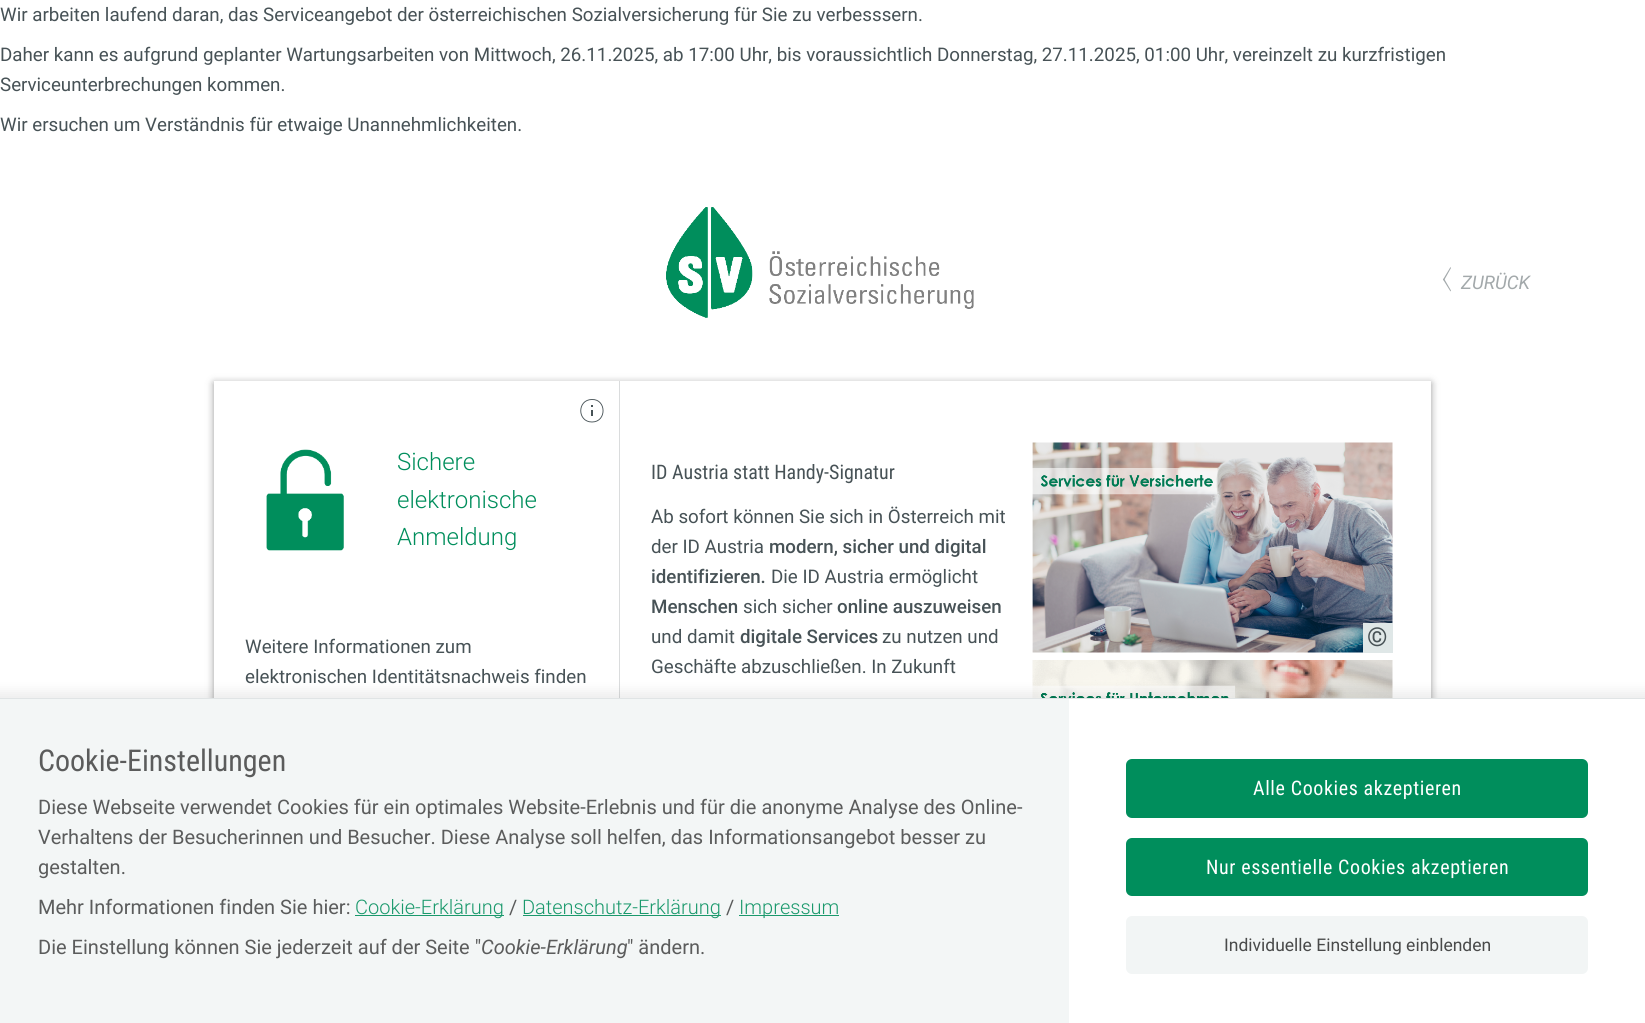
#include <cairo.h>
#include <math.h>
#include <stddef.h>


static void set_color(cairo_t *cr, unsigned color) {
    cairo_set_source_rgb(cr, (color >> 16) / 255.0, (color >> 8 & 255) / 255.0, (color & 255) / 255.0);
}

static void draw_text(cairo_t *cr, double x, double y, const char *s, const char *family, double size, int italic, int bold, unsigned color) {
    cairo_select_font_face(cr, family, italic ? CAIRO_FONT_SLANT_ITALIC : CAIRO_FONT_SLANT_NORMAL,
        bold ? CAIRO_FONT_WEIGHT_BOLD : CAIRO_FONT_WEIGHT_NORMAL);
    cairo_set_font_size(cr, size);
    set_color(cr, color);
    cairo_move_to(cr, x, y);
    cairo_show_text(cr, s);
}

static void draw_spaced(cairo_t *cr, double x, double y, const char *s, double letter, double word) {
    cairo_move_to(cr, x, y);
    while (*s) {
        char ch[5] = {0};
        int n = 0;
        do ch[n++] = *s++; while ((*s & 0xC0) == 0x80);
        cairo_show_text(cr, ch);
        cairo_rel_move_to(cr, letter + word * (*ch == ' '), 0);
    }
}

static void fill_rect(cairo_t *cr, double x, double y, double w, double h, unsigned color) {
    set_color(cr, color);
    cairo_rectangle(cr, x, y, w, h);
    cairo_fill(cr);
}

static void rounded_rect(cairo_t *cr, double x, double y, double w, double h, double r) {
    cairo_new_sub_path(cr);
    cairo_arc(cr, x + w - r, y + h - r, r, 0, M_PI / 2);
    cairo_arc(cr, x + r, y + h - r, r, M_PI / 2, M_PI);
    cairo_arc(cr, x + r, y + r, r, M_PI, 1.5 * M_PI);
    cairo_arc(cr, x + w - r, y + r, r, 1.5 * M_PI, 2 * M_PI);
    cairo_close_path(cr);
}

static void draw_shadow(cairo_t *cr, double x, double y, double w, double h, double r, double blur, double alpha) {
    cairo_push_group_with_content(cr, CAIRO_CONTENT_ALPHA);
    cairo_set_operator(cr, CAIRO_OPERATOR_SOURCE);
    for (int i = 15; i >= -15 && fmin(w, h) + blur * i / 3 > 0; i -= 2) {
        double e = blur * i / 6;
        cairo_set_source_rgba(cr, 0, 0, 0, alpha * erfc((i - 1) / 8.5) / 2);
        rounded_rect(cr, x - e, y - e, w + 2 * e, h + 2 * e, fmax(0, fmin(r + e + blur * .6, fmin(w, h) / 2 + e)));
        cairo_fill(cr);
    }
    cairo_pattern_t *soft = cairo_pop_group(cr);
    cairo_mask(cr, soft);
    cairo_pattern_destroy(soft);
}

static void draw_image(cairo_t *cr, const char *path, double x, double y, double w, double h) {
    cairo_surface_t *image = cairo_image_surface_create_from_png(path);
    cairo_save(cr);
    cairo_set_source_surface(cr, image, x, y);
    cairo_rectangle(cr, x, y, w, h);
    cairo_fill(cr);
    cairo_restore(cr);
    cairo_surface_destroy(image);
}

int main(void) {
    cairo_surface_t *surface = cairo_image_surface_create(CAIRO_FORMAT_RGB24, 1645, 1023);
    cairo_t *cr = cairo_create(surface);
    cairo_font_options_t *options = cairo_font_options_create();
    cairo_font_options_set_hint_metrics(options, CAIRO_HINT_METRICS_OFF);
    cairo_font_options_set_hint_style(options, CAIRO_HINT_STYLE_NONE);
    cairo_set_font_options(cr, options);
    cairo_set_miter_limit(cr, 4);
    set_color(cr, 0xFFFFFF);
    cairo_paint(cr);
    draw_text(cr, 0, 21, "Wir arbeiten laufend daran, das Serviceangebot der österreichischen Sozialversicherung für Sie zu verbesssern.", "Roboto", 18.75, 0, 0, 0x475256);
    draw_text(cr, 0, 61, "Daher kann es aufgrund geplanter Wartungsarbeiten von Mittwoch, 26.11.2025, ab 17:00 Uhr, bis voraussichtlich Donnerstag, 27.11.2025, 01:00 Uhr, vereinzelt zu kurzfristigen", "Roboto", 18.75, 0, 0, 0x475256);
    draw_text(cr, 0, 91, "Serviceunterbrechungen kommen.", "Roboto", 18.75, 0, 0, 0x475256);
    draw_text(cr, 0, 131, "Wir ersuchen um Verständnis für etwaige Unannehmlichkeiten.", "Roboto", 18.75, 0, 0, 0x475256);
    draw_image(cr, "assets/img1.png", 666, 207, 308, 111);
    set_color(cr, 0xA3A9AB);
    cairo_new_path(cr);
    cairo_move_to(cr, 1444, 278.5);
    cairo_line_to(cr, 1451, 290.5);
    cairo_line_to(cr, 1450.5, 291.5);
    cairo_line_to(cr, 1443, 279.5);
    cairo_close_path(cr);
    cairo_fill(cr);
    cairo_new_path(cr);
    cairo_move_to(cr, 1450.5, 267);
    cairo_line_to(cr, 1451, 268);
    cairo_line_to(cr, 1444, 280.5);
    cairo_line_to(cr, 1443, 279.5);
    cairo_close_path(cr);
    cairo_fill(cr);
    draw_text(cr, 1461, 289, "ZURÜCK", "Roboto", 18.75, 1, 0, 0xA3A9AB);
    set_color(cr, 0x000000);
    draw_shadow(cr, 214, 383, 1217, 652, 0, 4, 0.4);
    fill_rect(cr, 214, 381, 1217, 317, 0xFFFFFF);
    fill_rect(cr, 619, 381, 1, 317, 0xDADCDD);
    cairo_new_path(cr);
    cairo_move_to(cr, 592, 422);
    cairo_curve_to(cr, 607, 422, 606.5, 399, 592, 399.5);
    cairo_curve_to(cr, 577, 399.5, 577, 422, 592, 422);
    cairo_close_path(cr);
    set_color(cr, 0x475256);
    cairo_set_line_width(cr, 0.9);
    cairo_stroke(cr);
    cairo_new_path(cr);
    cairo_move_to(cr, 592, 407);
    cairo_line_to(cr, 592, 405);
    cairo_set_line_width(cr, 2);
    cairo_stroke(cr);
    fill_rect(cr, 591, 410, 2, 6, 0x475256);
    draw_image(cr, "assets/img2.png", 266, 449, 78, 102);
    draw_text(cr, 397, 470, "Sichere", "Roboto Light", 24, 0, 0, 0x008E5C);
    draw_text(cr, 397, 508, "elektronische", "Roboto Light", 24, 0, 0, 0x008E5C);
    draw_text(cr, 397, 545, "Anmeldung", "Roboto Light", 24, 0, 0, 0x008E5C);
    draw_text(cr, 245, 653, "Weitere Informationen zum", "Roboto", 18.75, 0, 0, 0x475256);
    draw_text(cr, 245, 683, "elektronischen Identitätsnachweis finden", "Roboto", 18.75, 0, 0, 0x475256);
    draw_text(cr, 651, 479, "ID Austria statt Handy-Signatur", "Roboto Condensed", 20, 0, 0, 0x475256);
    draw_text(cr, 651, 523, "Ab sofort können Sie sich in Österreich mit", "Roboto", 18.75, 0, 0, 0x475256);
    draw_text(cr, 651, 553, "der ID Austria", "Roboto", 18.75, 0, 0, 0x475256);
    draw_text(cr, 769, 553, "modern, sicher und digital", "Roboto Medium", 18.75, 0, 0, 0x475256);
    draw_text(cr, 651, 583, "identifizieren.", "Roboto Medium", 18.75, 0, 0, 0x475256);
    draw_text(cr, 771, 583, "Die ID Austria ermöglicht", "Roboto", 18.75, 0, 0, 0x475256);
    draw_text(cr, 651, 613, "Menschen", "Roboto Medium", 18.75, 0, 0, 0x475256);
    draw_text(cr, 743, 613, "sich sicher", "Roboto", 18.75, 0, 0, 0x475256);
    draw_text(cr, 837, 613, "online auszuweisen", "Roboto Medium", 18.75, 0, 0, 0x475256);
    draw_text(cr, 651, 643, "und damit", "Roboto", 18.75, 0, 0, 0x475256);
    draw_text(cr, 740, 643, "digitale Services", "Roboto Medium", 18.75, 0, 0, 0x475256);
    draw_text(cr, 882, 643, "zu nutzen und", "Roboto", 18.75, 0, 0, 0x475256);
    draw_text(cr, 651, 673, "Geschäfte abzuschließen. In Zukunft", "Roboto", 18.75, 0, 0, 0x475256);
    draw_image(cr, "assets/img3.png", 1032, 442, 361, 211);
    fill_rect(cr, 1363, 623, 30, 30, 0xDFE7E7);
    draw_text(cr, 1367, 646, "©", "Roboto", 26, 0, 0, 0x475256);
    draw_image(cr, "assets/img4.png", 1032, 660, 361, 38);
    set_color(cr, 0x000000);
    draw_shadow(cr, -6, 691, 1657, 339, 0, 6, 0.07);
    fill_rect(cr, 1069, 699, 576, 324, 0xFFFFFF);
    fill_rect(cr, 0, 698, 1645, 1, 0xE0E4E5);
    fill_rect(cr, 0, 699, 1069, 324, 0xF3F6F6);
    draw_text(cr, 38, 771, "Cookie-Einstellungen", "Roboto Condensed", 30, 0, 0, 0x5B5C5C);
    draw_text(cr, 38, 814, "Diese Webseite verwendet Cookies für ein optimales Website-Erlebnis und für die anonyme Analyse des Online-", "Roboto", 20, 0, 0, 0x5B5C5C);
    draw_text(cr, 38, 844, "Verhaltens der Besucherinnen und Besucher. Diese Analyse soll helfen, das Informationsangebot besser zu", "Roboto", 20, 0, 0, 0x5B5C5C);
    draw_text(cr, 38, 874, "gestalten.", "Roboto", 20, 0, 0, 0x5B5C5C);
    draw_text(cr, 38, 914, "Mehr Informationen finden Sie hier:", "Roboto", 20, 0, 0, 0x5B5C5C);
    fill_rect(cr, 355, 915, 149, 1, 0x1A996C);
    draw_text(cr, 355, 914, "Cookie-Erklärung", "Roboto Light", 20, 0, 0, 0x1A996C);
    draw_text(cr, 509, 914, "/", "Roboto", 20, 0, 0, 0x5B5C5C);
    fill_rect(cr, 523, 915, 198, 1, 0x1A996C);
    draw_text(cr, 522, 914, "Datenschutz-Erklärung", "Roboto Light", 20, 0, 0, 0x1A996C);
    draw_text(cr, 726, 914, "/", "Roboto", 20, 0, 0, 0x5B5C5C);
    fill_rect(cr, 739, 915, 100, 1, 0x1A996C);
    draw_text(cr, 739, 914, "Impressum", "Roboto Light", 20, 0, 0, 0x1A996C);
    draw_text(cr, 38, 954, "Die Einstellung können Sie jederzeit auf der Seite \"", "Roboto", 20, 0, 0, 0x5B5C5C);
    draw_text(cr, 481, 954, "Cookie-Erklärung", "Roboto", 20, 1, 0, 0x5B5C5C);
    draw_text(cr, 627, 954, "\" ändern.", "Roboto", 20, 0, 0, 0x5B5C5C);
    set_color(cr, 0x008E5C);
    rounded_rect(cr, 1126, 759, 462, 59, 6);
    cairo_fill(cr);
    cairo_select_font_face(cr, "Roboto Condensed", CAIRO_FONT_SLANT_NORMAL, CAIRO_FONT_WEIGHT_NORMAL);
    set_color(cr, 0xFFFFFF);
    draw_spaced(cr, 1253, 795, "Alle Cookies akzeptieren", 0.6, 0);
    set_color(cr, 0x008E5C);
    rounded_rect(cr, 1126, 838, 462, 58, 6);
    cairo_fill(cr);
    set_color(cr, 0xFFFFFF);
    draw_spaced(cr, 1206, 874, "Nur essentielle Cookies akzeptieren", 0.6, 0);
    set_color(cr, 0xF2F5F5);
    rounded_rect(cr, 1126, 916, 462, 58, 6);
    cairo_fill(cr);
    draw_text(cr, 1224, 951, "Individuelle Einstellung einblenden", "Roboto", 17.5, 0, 0, 0x494A4A);
    cairo_surface_write_to_png(surface, "output.png");
    cairo_font_options_destroy(options);
    cairo_destroy(cr);
    cairo_surface_destroy(surface);
    return 0;
}
